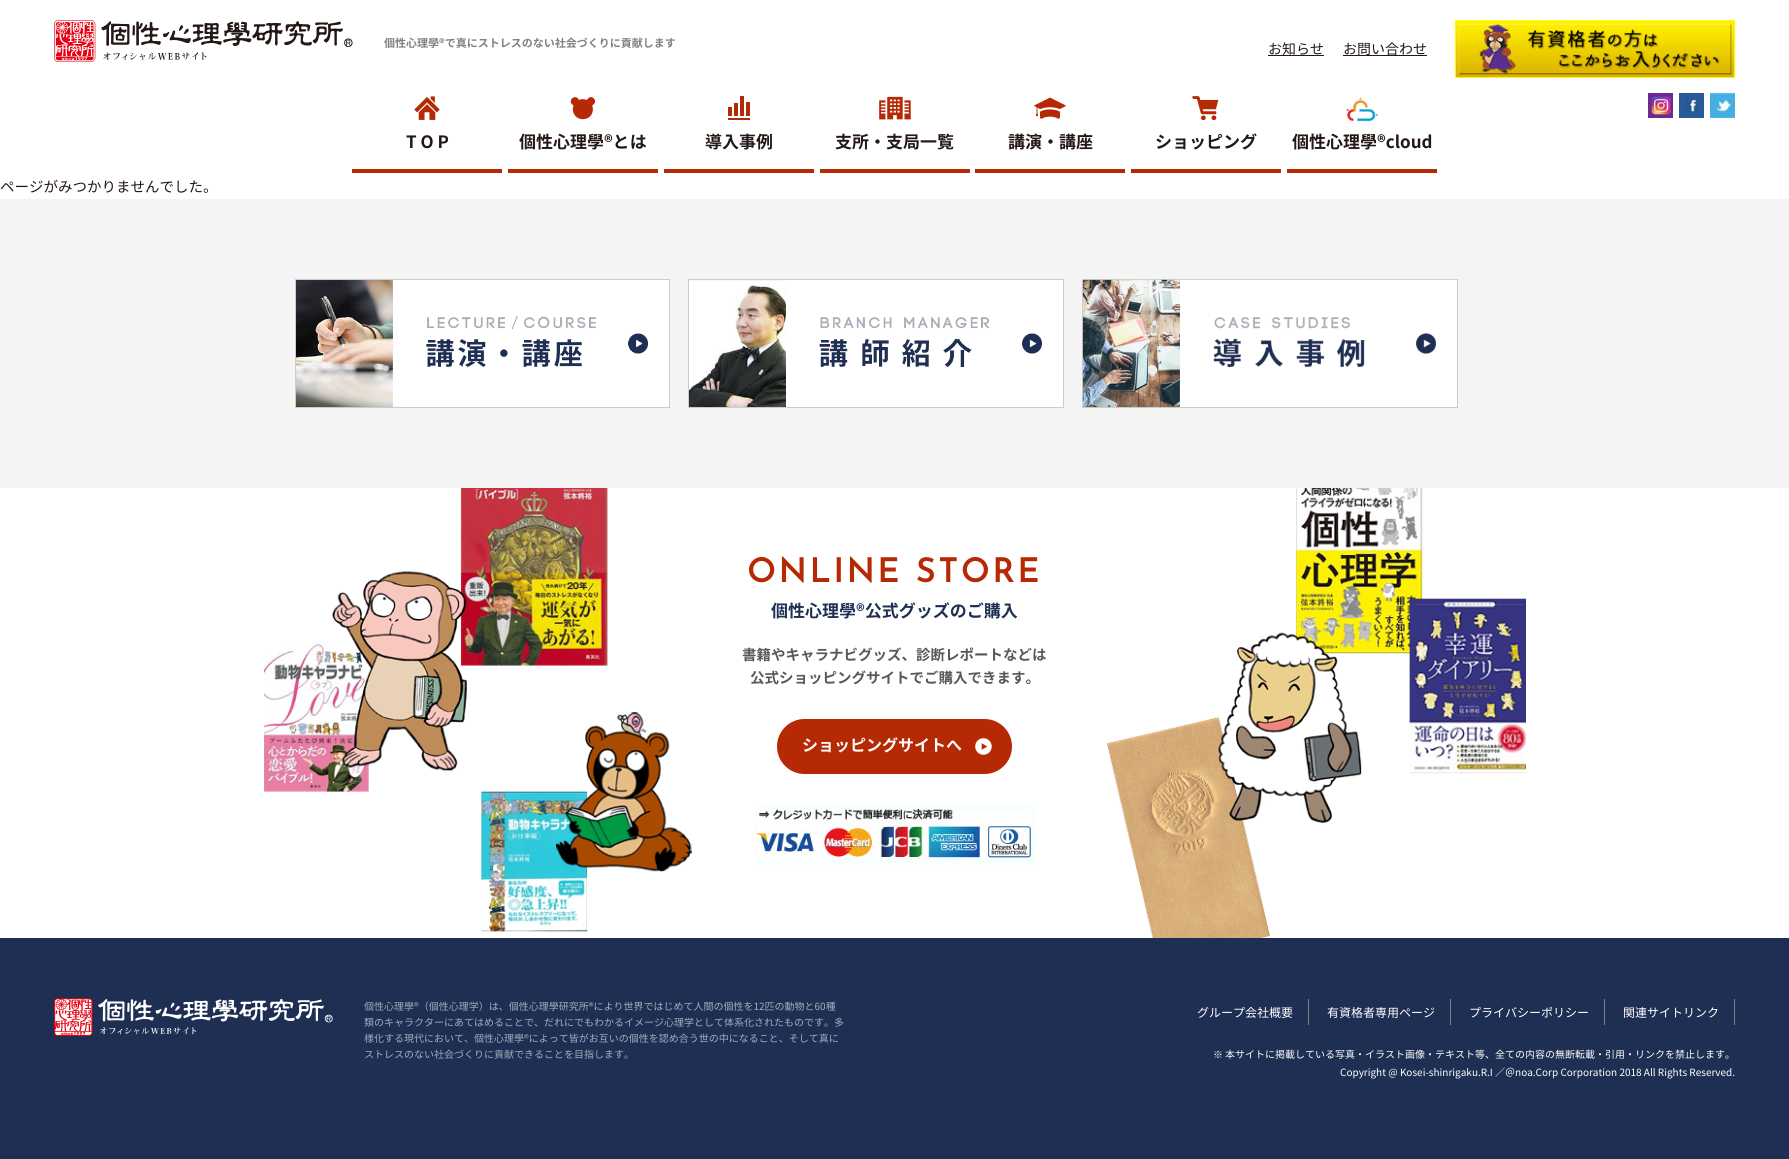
#include <cairo.h>
#include <math.h>
#include <stddef.h>


static void set_color(cairo_t *cr, unsigned color) {
    cairo_set_source_rgb(cr, (color >> 16) / 255.0, (color >> 8 & 255) / 255.0, (color & 255) / 255.0);
}

static void draw_text(cairo_t *cr, double x, double y, const char *s, const char *family, double size, int italic, int bold, unsigned color) {
    cairo_select_font_face(cr, family, italic ? CAIRO_FONT_SLANT_ITALIC : CAIRO_FONT_SLANT_NORMAL,
        bold ? CAIRO_FONT_WEIGHT_BOLD : CAIRO_FONT_WEIGHT_NORMAL);
    cairo_set_font_size(cr, size);
    set_color(cr, color);
    cairo_move_to(cr, x, y);
    cairo_show_text(cr, s);
}

static void draw_spaced(cairo_t *cr, double x, double y, const char *s, double letter, double word) {
    cairo_move_to(cr, x, y);
    while (*s) {
        char ch[5] = {0};
        int n = 0;
        do ch[n++] = *s++; while ((*s & 0xC0) == 0x80);
        cairo_show_text(cr, ch);
        cairo_rel_move_to(cr, letter + word * (*ch == ' '), 0);
    }
}

static void fill_rect(cairo_t *cr, double x, double y, double w, double h, unsigned color) {
    set_color(cr, color);
    cairo_rectangle(cr, x, y, w, h);
    cairo_fill(cr);
}

static void rounded_rect(cairo_t *cr, double x, double y, double w, double h, double r) {
    cairo_new_sub_path(cr);
    cairo_arc(cr, x + w - r, y + h - r, r, 0, M_PI / 2);
    cairo_arc(cr, x + r, y + h - r, r, M_PI / 2, M_PI);
    cairo_arc(cr, x + r, y + r, r, M_PI, 1.5 * M_PI);
    cairo_arc(cr, x + w - r, y + r, r, 1.5 * M_PI, 2 * M_PI);
    cairo_close_path(cr);
}

static void draw_image(cairo_t *cr, const char *path, double x, double y, double w, double h) {
    cairo_surface_t *image = cairo_image_surface_create_from_png(path);
    cairo_save(cr);
    cairo_set_source_surface(cr, image, x, y);
    cairo_rectangle(cr, x, y, w, h);
    cairo_fill(cr);
    cairo_restore(cr);
    cairo_surface_destroy(image);
}

int main(void) {
    cairo_surface_t *surface = cairo_image_surface_create(CAIRO_FORMAT_RGB24, 1789, 1159);
    cairo_t *cr = cairo_create(surface);
    cairo_font_options_t *options = cairo_font_options_create();
    cairo_font_options_set_hint_metrics(options, CAIRO_HINT_METRICS_OFF);
    cairo_font_options_set_hint_style(options, CAIRO_HINT_STYLE_NONE);
    cairo_set_font_options(cr, options);
    cairo_set_miter_limit(cr, 4);
    set_color(cr, 0xFFFFFF);
    cairo_paint(cr);
    draw_image(cr, "assets/img1.png", 54, 20, 299, 42);
    draw_text(cr, 384, 47, "個性心理學®で真にストレスのない社会づくりに貢献します", "Noto Sans JP", 11, 0, 1, 0x808080);
    draw_text(cr, 1268, 54, "お知らせ", "Noto Sans JP", 14, 0, 0, 0x231815);
    fill_rect(cr, 1268, 55, 56, 1, 0x231815);
    fill_rect(cr, 1343, 55, 84, 1, 0x231815);
    draw_text(cr, 1343, 54, "お問い合わせ", "Noto Sans JP", 14, 0, 0, 0x231815);
    draw_image(cr, "assets/img2.png", 1455, 20, 280, 58);
    draw_image(cr, "assets/img3.png", 1648, 93, 25, 25);
    draw_image(cr, "assets/img4.png", 1679, 93, 25, 25);
    draw_image(cr, "assets/img5.png", 1710, 92, 25, 26);
    fill_rect(cr, 352, 169, 150, 4, 0xB62905);
    draw_image(cr, "assets/img6.png", 414, 96, 26, 24);
    draw_text(cr, 406, 148, "T O P", "Noto Sans JP", 17, 0, 1, 0x231815);
    fill_rect(cr, 508, 169, 150, 4, 0xB62905);
    draw_image(cr, "assets/img7.png", 570, 97, 26, 23);
    draw_text(cr, 519, 148, "個性心理學®とは", "Noto Sans JP", 17, 0, 1, 0x231815);
    fill_rect(cr, 664, 169, 150, 4, 0xB62905);
    fill_rect(cr, 728, 107, 4, 9, 0xB62905);
    fill_rect(cr, 734, 103, 4, 13, 0xB62905);
    fill_rect(cr, 740, 96, 4, 20, 0xB62905);
    fill_rect(cr, 746, 102, 4, 14, 0xB62905);
    fill_rect(cr, 728, 118, 22, 2, 0xB62905);
    draw_text(cr, 705, 148, "導入事例", "Noto Sans JP", 17, 0, 1, 0x231815);
    fill_rect(cr, 820, 169, 150, 4, 0xB62905);
    draw_image(cr, "assets/img8.png", 879, 96, 32, 24);
    draw_text(cr, 835, 148, "支所・支局一覧", "Noto Sans JP", 17, 0, 1, 0x231815);
    fill_rect(cr, 975, 169, 150, 4, 0xB62905);
    draw_image(cr, "assets/img9.png", 1034, 97, 32, 22);
    draw_text(cr, 1008, 148, "講演・講座", "Noto Sans JP", 17, 0, 1, 0x231815);
    fill_rect(cr, 1131, 169, 150, 4, 0xB62905);
    draw_image(cr, "assets/img10.png", 1192, 96, 27, 25);
    draw_text(cr, 1155, 148, "ショッピング", "Noto Sans JP", 17, 0, 1, 0x231815);
    fill_rect(cr, 1287, 169, 150, 4, 0xB62905);
    draw_image(cr, "assets/img11.png", 1346, 97, 33, 25);
    draw_text(cr, 1292, 148, "個性心理學®cloud", "Noto Sans JP", 17, 0, 1, 0x231815);
    draw_text(cr, 0, 192, "ページがみつかりませんでした。", "Noto Sans JP", 14.5, 0, 0, 0x231815);
    fill_rect(cr, 0, 199, 1789, 289, 0xF4F4F4);
    cairo_rectangle(cr, 295.5, 279.5, 374, 128);
    set_color(cr, 0xCCCCCC);
    cairo_set_line_width(cr, 1);
    cairo_stroke(cr);
    draw_image(cr, "assets/img12.png", 296, 280, 373, 127);
    cairo_rectangle(cr, 688.5, 279.5, 375, 128);
    cairo_stroke(cr);
    draw_image(cr, "assets/img13.png", 689, 280, 374, 127);
    cairo_rectangle(cr, 1082.5, 279.5, 375, 128);
    cairo_stroke(cr);
    draw_image(cr, "assets/img14.png", 1082, 279, 375, 129);
    draw_image(cr, "assets/img15.png", 264, 488, 1262, 450);
    cairo_select_font_face(cr, "Josefin Sans", CAIRO_FONT_SLANT_NORMAL, CAIRO_FONT_WEIGHT_BOLD);
    cairo_set_font_size(cr, 33);
    set_color(cr, 0xB62905);
    draw_spaced(cr, 747, 582, "ONLINE STORE", 3.25, 0);
    draw_text(cr, 771, 617, "個性心理學®公式グッズのご購入", "Noto Sans JP", 17, 0, 1, 0x1F2F54);
    draw_text(cr, 742, 660, "書籍やキャラナビグッズ、診断レポートなどは", "Noto Sans JP", 14.5, 0, 1, 0x595757);
    draw_text(cr, 750, 683, "公式ショッピングサイトでご購入できます。", "Noto Sans JP", 14.5, 0, 1, 0x595757);
    set_color(cr, 0xB62905);
    rounded_rect(cr, 777, 719, 235, 55, 27.5);
    cairo_fill(cr);
    draw_image(cr, "assets/img16.png", 975, 738, 17, 17);
    draw_text(cr, 802, 751, "ショッピングサイトへ", "Noto Sans JP", 16, 0, 1, 0xFFFFFF);
    draw_image(cr, "assets/img17.png", 755, 804, 280, 61);
    fill_rect(cr, 0, 938, 1789, 221, 0x1F2F54);
    draw_image(cr, "assets/img18.png", 54, 998, 279, 38);
    draw_text(cr, 364, 1010, "個性心理學®（個性心理学）は、個性心理學研究所®により世界ではじめて人間の個性を12匹の動物と60種", "Noto Sans JP", 10, 0, 0, 0xA5ACBB);
    draw_text(cr, 364, 1026, "類のキャラクターにあてはめることで、だれにでもわかるイメージ心理学として体系化されたものです。多", "Noto Sans JP", 10, 0, 0, 0xA5ACBB);
    draw_text(cr, 364, 1042, "様化する現代において、個性心理學®によって皆がお互いの個性を認め合う世の中になること、そして真に", "Noto Sans JP", 10, 0, 0, 0xA5ACBB);
    draw_text(cr, 364, 1058, "ストレスのない社会づくりに貢献できることを目指します。", "Noto Sans JP", 10, 0, 0, 0xA5ACBB);
    fill_rect(cr, 1308, 999, 1, 26, 0x7E7F88);
    draw_text(cr, 1197, 1017, "グループ会社概要", "Noto Sans JP", 12, 0, 0, 0xFFFFFF);
    fill_rect(cr, 1450, 999, 1, 26, 0x7E7F88);
    draw_text(cr, 1327, 1017, "有資格者専用ページ", "Noto Sans JP", 12, 0, 0, 0xFFFFFF);
    fill_rect(cr, 1604, 999, 1, 26, 0x7E7F88);
    draw_text(cr, 1469, 1017, "プライバシーポリシー", "Noto Sans JP", 12, 0, 0, 0xFFFFFF);
    fill_rect(cr, 1734, 999, 1, 26, 0x7E7F88);
    draw_text(cr, 1623, 1017, "関連サイトリンク", "Noto Sans JP", 12, 0, 0, 0xFFFFFF);
    draw_text(cr, 1213, 1058, "※", "WenQuanYi Zen Hei Medium", 10, 0, 0, 0xFFFFFF);
    draw_text(cr, 1225, 1058, "本サイトに掲載している写真・イラスト画像・テキスト等、全ての内容の無断転載・引用・リンクを禁止します。", "Noto Sans JP", 10, 0, 0, 0xFFFFFF);
    draw_text(cr, 1340, 1076, "Copyright @ Kosei-shinrigaku.R.I ／＠noa.Corp Corporation 2018 All Rights Reserved.", "Noto Sans JP", 10, 0, 0, 0xFFFFFF);
    cairo_surface_write_to_png(surface, "output.png");
    cairo_font_options_destroy(options);
    cairo_destroy(cr);
    cairo_surface_destroy(surface);
    return 0;
}
